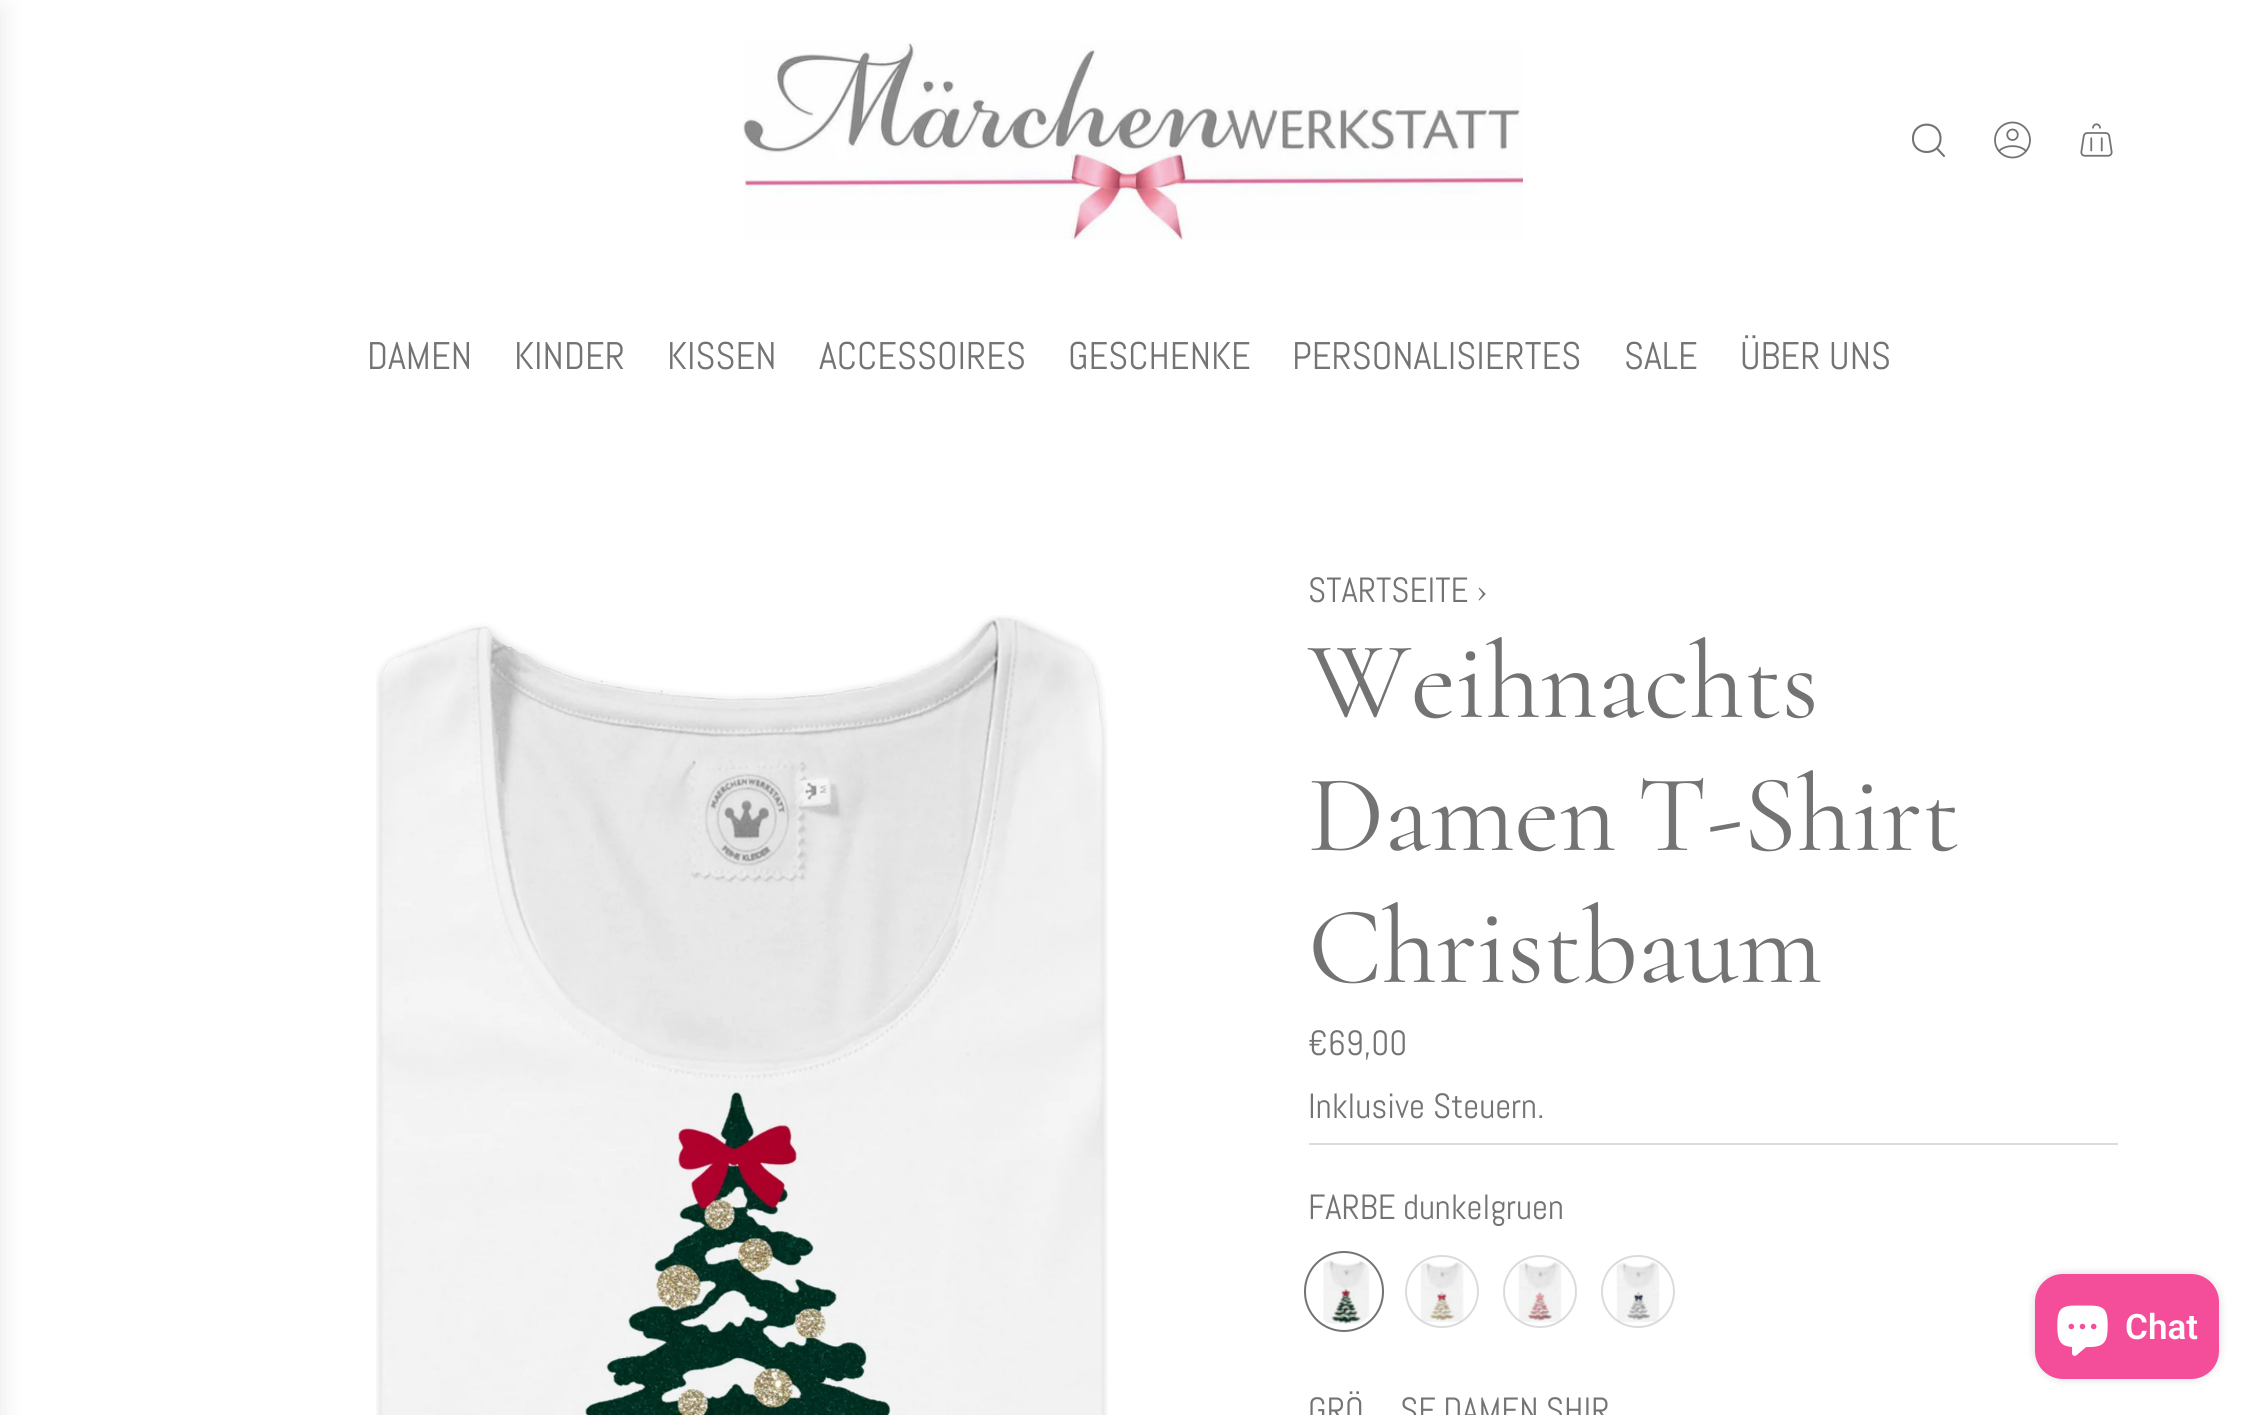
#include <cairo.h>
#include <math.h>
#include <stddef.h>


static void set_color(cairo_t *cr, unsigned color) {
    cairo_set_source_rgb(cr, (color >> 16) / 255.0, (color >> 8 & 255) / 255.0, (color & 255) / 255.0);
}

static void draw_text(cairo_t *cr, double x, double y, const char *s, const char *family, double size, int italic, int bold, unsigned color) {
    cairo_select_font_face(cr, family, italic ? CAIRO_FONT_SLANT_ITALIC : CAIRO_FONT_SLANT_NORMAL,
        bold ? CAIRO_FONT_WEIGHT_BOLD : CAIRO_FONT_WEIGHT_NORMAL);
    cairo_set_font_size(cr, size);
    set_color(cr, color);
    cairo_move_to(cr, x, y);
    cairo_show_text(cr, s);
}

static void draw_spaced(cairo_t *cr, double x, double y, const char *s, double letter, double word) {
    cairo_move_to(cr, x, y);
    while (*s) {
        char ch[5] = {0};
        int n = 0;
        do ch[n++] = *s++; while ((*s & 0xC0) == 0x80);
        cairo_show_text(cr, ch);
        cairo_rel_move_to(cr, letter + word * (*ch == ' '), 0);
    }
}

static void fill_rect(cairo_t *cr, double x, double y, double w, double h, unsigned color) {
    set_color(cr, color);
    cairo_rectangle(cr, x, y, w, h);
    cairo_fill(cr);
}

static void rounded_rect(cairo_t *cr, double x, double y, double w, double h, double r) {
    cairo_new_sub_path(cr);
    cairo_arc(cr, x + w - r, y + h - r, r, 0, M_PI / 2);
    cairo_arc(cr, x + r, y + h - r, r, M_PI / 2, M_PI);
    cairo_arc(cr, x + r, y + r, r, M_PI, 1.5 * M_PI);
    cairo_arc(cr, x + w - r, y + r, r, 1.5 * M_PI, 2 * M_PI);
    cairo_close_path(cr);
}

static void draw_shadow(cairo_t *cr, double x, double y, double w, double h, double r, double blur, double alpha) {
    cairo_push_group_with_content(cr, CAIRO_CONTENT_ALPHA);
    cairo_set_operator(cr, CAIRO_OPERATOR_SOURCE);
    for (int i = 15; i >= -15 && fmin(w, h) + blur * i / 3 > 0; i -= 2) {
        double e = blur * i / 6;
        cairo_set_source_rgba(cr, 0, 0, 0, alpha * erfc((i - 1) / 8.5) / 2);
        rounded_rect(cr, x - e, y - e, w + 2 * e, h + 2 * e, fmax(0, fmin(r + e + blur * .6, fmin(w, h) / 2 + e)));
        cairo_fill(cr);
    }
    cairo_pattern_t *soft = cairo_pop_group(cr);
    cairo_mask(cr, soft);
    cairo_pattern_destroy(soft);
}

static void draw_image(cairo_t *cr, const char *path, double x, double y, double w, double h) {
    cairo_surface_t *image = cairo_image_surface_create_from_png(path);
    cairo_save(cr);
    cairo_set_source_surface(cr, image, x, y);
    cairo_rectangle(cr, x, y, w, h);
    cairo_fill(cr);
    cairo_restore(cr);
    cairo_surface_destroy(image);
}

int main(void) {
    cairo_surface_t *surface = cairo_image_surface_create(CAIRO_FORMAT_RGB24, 2257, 1415);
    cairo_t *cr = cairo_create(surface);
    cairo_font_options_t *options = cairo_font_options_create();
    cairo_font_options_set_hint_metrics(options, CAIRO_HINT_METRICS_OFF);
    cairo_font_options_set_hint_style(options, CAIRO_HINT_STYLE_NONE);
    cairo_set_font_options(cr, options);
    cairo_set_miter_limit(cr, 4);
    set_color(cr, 0xFFFFFF);
    cairo_paint(cr);
    set_color(cr, 0x000000);
    draw_shadow(cr, -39, 9, 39, 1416, 0, 13, 0.1);
    draw_image(cr, "assets/img1.png", 743, 42, 780, 198);
    cairo_new_path(cr);
    cairo_move_to(cr, 1937.5, 149);
    cairo_line_to(cr, 1944, 156);
    cairo_move_to(cr, 1913, 138.5);
    cairo_curve_to(cr, 1913, 156.5, 1940.5, 156.5, 1940.5, 138.5);
    cairo_curve_to(cr, 1940.5, 120, 1913, 120, 1913, 138.5);
    cairo_close_path(cr);
    set_color(cr, 0x737373);
    cairo_set_line_width(cr, 2.1);
    cairo_set_line_cap(cr, CAIRO_LINE_CAP_ROUND);
    cairo_set_line_join(cr, CAIRO_LINE_JOIN_ROUND);
    cairo_stroke(cr);
    draw_image(cr, "assets/img2.png", 1994, 121, 37, 38);
    draw_image(cr, "assets/img3.png", 2080, 123, 33, 34);
    draw_text(cr, 367, 369, "DAMEN", "Abel", 38.5, 0, 0, 0x737373);
    draw_text(cr, 514, 369, "KINDER", "Abel", 38.5, 0, 0, 0x737373);
    draw_text(cr, 667, 369, "KISSEN", "Abel", 38.5, 0, 0, 0x737373);
    draw_text(cr, 819, 369, "ACCESSOIRES", "Abel", 38.5, 0, 0, 0x737373);
    draw_text(cr, 1068, 369, "GESCHENKE", "Abel", 38.5, 0, 0, 0x737373);
    draw_text(cr, 1292, 369, "PERSONALISIERTES", "Abel", 38.5, 0, 0, 0x737373);
    draw_text(cr, 1624, 369, "SALE", "Abel", 38.5, 0, 0, 0x737373);
    draw_text(cr, 1740, 369, "ÜBER UNS", "Abel", 38.5, 0, 0, 0x737373);
    draw_image(cr, "assets/img4.png", 376, 615, 732, 800);
    draw_text(cr, 1308, 602, "STARTSEITE ›", "Abel", 35, 0, 0, 0x737373);
    draw_text(cr, 1308, 717, "Weihnachts", "Cormorant", 110.25, 0, 0, 0x737373);
    draw_spaced(cr, 1308, 850, "Damen T-Shirt", 0, -5);
    draw_text(cr, 1308, 982, "Christbaum", "Cormorant", 110.25, 0, 0, 0x737373);
    draw_text(cr, 1308, 1055, "€69,00", "Abel", 35, 0, 0, 0x737373);
    draw_text(cr, 1308, 1118, "Inklusive Steuern.", "Abel", 35, 0, 0, 0x737373);
    fill_rect(cr, 1309, 1143, 809, 2, 0xDCDCDC);
    draw_text(cr, 1308, 1219, "FARBE", "Abel", 35, 0, 0, 0x737373);
    draw_text(cr, 1403, 1219, "dunkelgruen", "Abel", 35, 0, 0, 0x737373);
    draw_image(cr, "assets/img5.png", 1323, 1260, 47, 65);
    rounded_rect(cr, 1305, 1252, 78, 79, 39);
    cairo_set_line_width(cr, 2);
    cairo_set_line_cap(cr, CAIRO_LINE_CAP_BUTT);
    cairo_set_line_join(cr, CAIRO_LINE_JOIN_MITER);
    cairo_stroke(cr);
    draw_image(cr, "assets/img6.png", 1420, 1262, 44, 61);
    rounded_rect(cr, 1406, 1256, 72, 71, 35.5);
    cairo_set_source_rgba(cr, 0.451, 0.451, 0.451, 0.25);
    cairo_stroke(cr);
    draw_image(cr, "assets/img7.png", 1518, 1262, 44, 61);
    rounded_rect(cr, 1504, 1256, 72, 71, 35.5);
    cairo_stroke(cr);
    draw_image(cr, "assets/img8.png", 1616, 1262, 44, 61);
    rounded_rect(cr, 1602, 1256, 72, 71, 35.5);
    cairo_stroke(cr);
    draw_text(cr, 1308, 1422, "GRÖ", "Abel", 35, 0, 0, 0x737373);
    draw_spaced(cr, 1400, 1422, "SE DAMEN SHIR", 0, -1);
    set_color(cr, 0x000000);
    draw_shadow(cr, 2035, 1274, 184, 105, 28, 4.5, 0.15);
    set_color(cr, 0xF44D99);
    rounded_rect(cr, 2035, 1274, 184, 105, 28);
    cairo_fill(cr);
    draw_image(cr, "assets/img9.png", 2057, 1305, 51, 51);
    draw_text(cr, 2125, 1339, "Chat", "Roboto SemiBold", 35, 0, 0, 0xFFFFFF);
    cairo_surface_write_to_png(surface, "output.png");
    cairo_font_options_destroy(options);
    cairo_destroy(cr);
    cairo_surface_destroy(surface);
    return 0;
}
